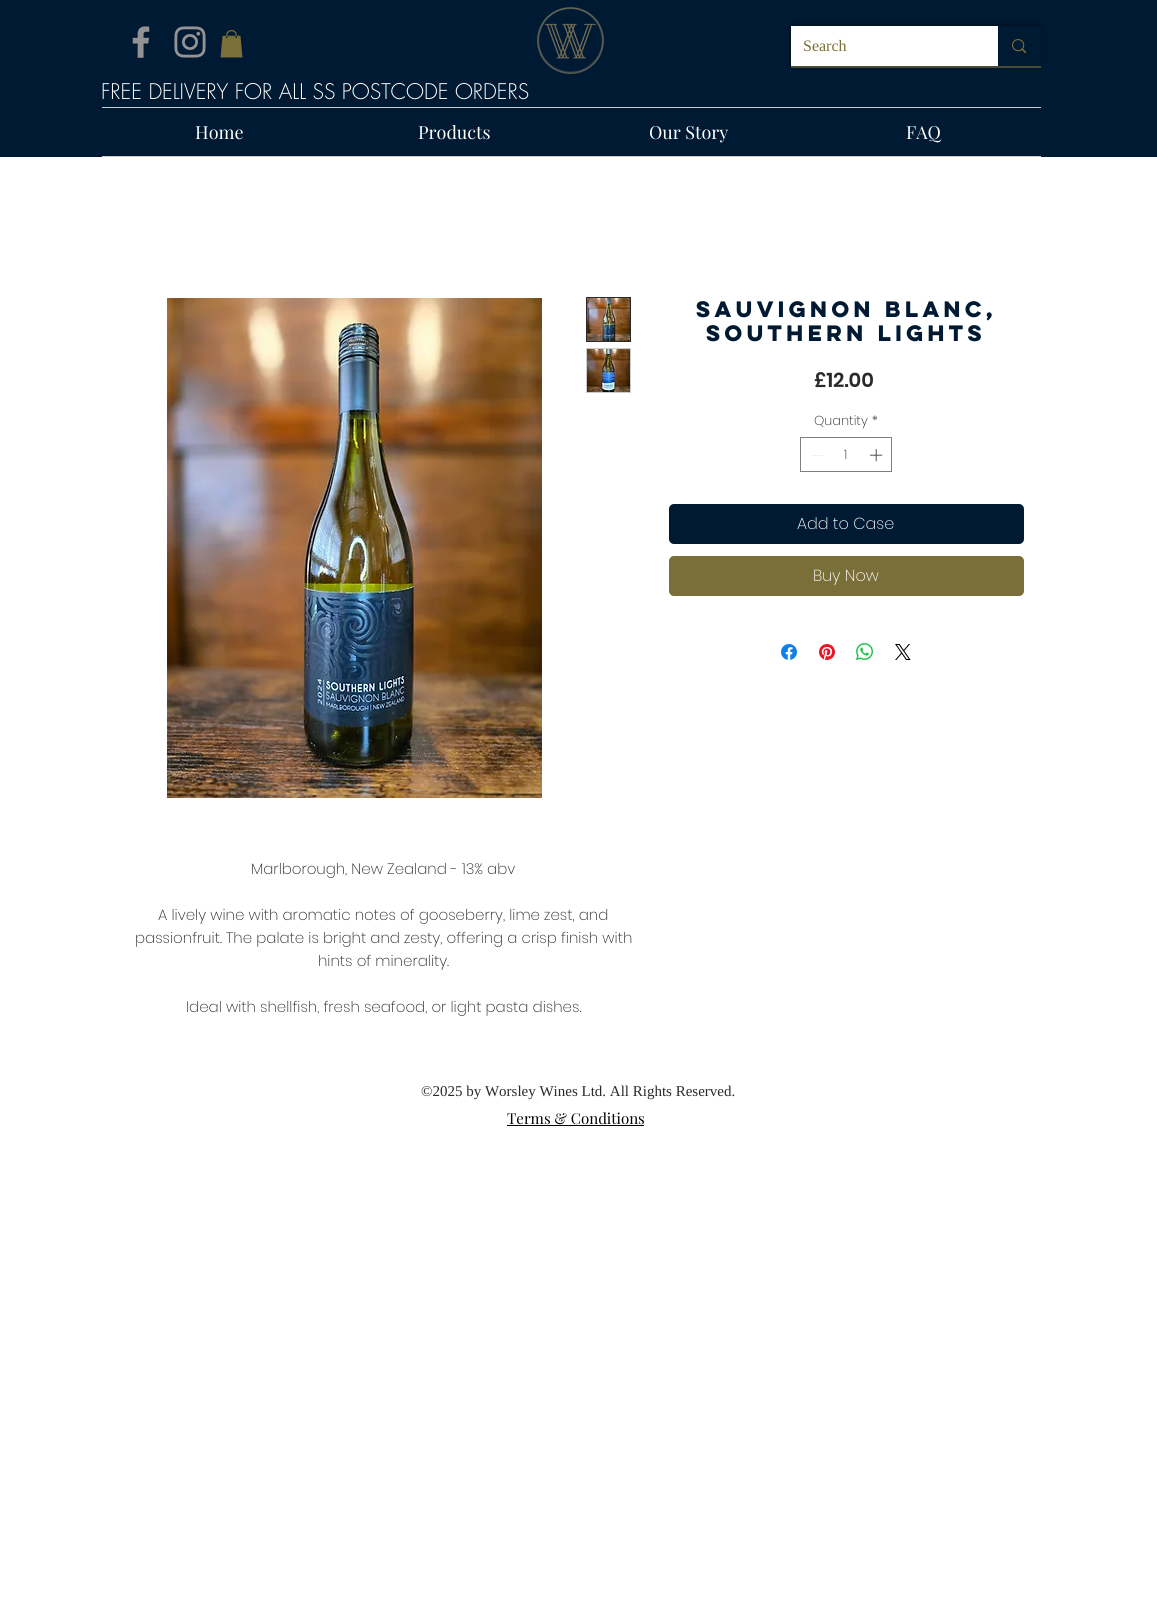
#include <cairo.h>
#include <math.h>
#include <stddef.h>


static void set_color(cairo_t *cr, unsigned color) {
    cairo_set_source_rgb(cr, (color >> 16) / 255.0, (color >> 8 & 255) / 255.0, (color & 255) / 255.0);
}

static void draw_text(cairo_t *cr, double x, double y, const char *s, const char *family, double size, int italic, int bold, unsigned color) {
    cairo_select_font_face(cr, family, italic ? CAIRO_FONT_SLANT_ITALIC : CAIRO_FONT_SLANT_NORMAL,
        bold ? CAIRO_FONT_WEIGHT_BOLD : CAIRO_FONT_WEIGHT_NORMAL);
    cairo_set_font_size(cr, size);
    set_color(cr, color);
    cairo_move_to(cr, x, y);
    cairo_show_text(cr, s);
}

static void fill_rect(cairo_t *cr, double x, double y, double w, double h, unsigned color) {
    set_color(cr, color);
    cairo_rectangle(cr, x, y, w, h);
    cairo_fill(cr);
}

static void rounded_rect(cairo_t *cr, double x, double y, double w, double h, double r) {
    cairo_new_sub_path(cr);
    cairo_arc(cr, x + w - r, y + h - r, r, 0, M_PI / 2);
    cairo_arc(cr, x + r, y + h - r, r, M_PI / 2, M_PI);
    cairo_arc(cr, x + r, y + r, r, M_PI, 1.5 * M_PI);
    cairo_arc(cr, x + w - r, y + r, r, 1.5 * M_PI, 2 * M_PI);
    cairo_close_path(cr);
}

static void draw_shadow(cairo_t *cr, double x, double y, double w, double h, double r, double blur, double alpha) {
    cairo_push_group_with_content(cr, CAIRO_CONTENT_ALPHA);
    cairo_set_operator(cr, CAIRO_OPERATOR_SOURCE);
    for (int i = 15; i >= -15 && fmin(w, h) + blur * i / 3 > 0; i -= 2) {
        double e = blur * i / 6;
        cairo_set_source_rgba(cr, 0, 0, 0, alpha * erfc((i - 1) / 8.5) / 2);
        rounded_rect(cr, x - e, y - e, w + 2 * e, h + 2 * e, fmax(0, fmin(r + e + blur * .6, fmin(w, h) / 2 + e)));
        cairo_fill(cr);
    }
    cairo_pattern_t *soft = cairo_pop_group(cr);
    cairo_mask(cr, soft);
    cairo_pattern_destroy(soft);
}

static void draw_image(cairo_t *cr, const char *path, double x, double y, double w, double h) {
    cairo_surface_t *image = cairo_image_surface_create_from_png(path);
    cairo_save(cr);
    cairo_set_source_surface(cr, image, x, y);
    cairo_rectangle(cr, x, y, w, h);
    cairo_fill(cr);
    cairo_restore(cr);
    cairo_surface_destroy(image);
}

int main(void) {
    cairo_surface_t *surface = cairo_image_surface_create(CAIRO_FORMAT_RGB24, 1157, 1615);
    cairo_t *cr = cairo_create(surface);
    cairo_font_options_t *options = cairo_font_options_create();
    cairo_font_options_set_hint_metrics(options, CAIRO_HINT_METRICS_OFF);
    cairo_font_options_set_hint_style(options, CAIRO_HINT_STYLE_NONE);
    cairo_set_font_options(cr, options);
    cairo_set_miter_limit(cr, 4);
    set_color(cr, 0xFFFFFF);
    cairo_paint(cr);
    fill_rect(cr, 0, 0, 1157, 157, 0x001A33);
    draw_image(cr, "assets/img1.png", 132, 26, 18, 32);
    draw_image(cr, "assets/img2.png", 174, 26, 32, 32);
    draw_image(cr, "assets/img3.png", 220, 30, 23, 28);
    draw_image(cr, "assets/img4.png", 537, 7, 67, 67);
    set_color(cr, 0x000000);
    draw_shadow(cr, 790, 25, 250, 42, 0, 2, 0.6);
    fill_rect(cr, 791, 66, 250, 2, 0x494D36);
    fill_rect(cr, 791, 26, 207, 40, 0xFFFFFF);
    draw_text(cr, 803, 51, "Search", "Liberation Serif", 16, 0, 0, 0x7A6F38);
    fill_rect(cr, 998, 26, 43, 40, 0x001A33);
    draw_image(cr, "assets/img5.png", 1012, 39, 15, 14);
    draw_text(cr, 101, 99, "FREE DELIVERY FOR ALL SS POSTCODE ORDERS", "futura Light", 21, 0, 0, 0xFFFFFF);
    fill_rect(cr, 102, 107, 939, 1, 0xCACACA);
    fill_rect(cr, 102, 156, 939, 1, 0xCACACA);
    draw_text(cr, 195, 139, "Home", "Playfair Display", 18, 0, 0, 0xFFFFFF);
    draw_text(cr, 418, 139, "Products", "Playfair Display", 18, 0, 0, 0xFFFFFF);
    draw_text(cr, 649, 139, "Our Story", "Playfair Display", 18, 0, 0, 0xFFFFFF);
    draw_text(cr, 906, 139, "FAQ", "Playfair Display", 18, 0, 0, 0xFFFFFF);
    draw_text(cr, 696, 317, "Sauvignon Blanc,", "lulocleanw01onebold", 20, 0, 1, 0x001A33);
    draw_text(cr, 706, 341, "Southern Lights", "lulocleanw01onebold", 20, 0, 1, 0x001A33);
    draw_text(cr, 814, 387, "£12.00", "Poppins SemiBold", 20, 0, 0, 0x2A2A2A);
    draw_text(cr, 814, 425, "Quantity", "Poppins ExtraLight", 13, 0, 0, 0x2A2A2A);
    draw_text(cr, 872, 425, "*", "Poppins ExtraLight", 13, 0, 0, 0x2A2A2A);
    cairo_rectangle(cr, 800.5, 437.5, 91, 34);
    set_color(cr, 0x7F7F7F);
    cairo_set_line_width(cr, 1);
    cairo_stroke(cr);
    set_color(cr, 0xE3E3E3);
    cairo_set_fill_rule(cr, CAIRO_FILL_RULE_EVEN_ODD);
    cairo_new_path(cr);
    cairo_move_to(cr, 823, 455);
    cairo_line_to(cr, 823, 455.5);
    cairo_line_to(cr, 811, 455.5);
    cairo_line_to(cr, 811, 455);
    cairo_close_path(cr);
    cairo_fill(cr);
    draw_text(cr, 844, 459, "1", "Poppins ExtraLight", 13, 0, 0, 0x2A2A2A);
    draw_image(cr, "assets/img6.png", 870, 449, 13, 13);
    set_color(cr, 0x001A33);
    rounded_rect(cr, 669, 504, 355, 40, 5);
    cairo_fill(cr);
    draw_text(cr, 797, 529, "Add to Case", "Poppins ExtraLight", 16, 0, 0, 0xFFFFFF);
    set_color(cr, 0x7A6F38);
    rounded_rect(cr, 669, 556, 355, 40, 5);
    cairo_fill(cr);
    draw_text(cr, 813, 581, "Buy Now", "Poppins ExtraLight", 16, 0, 0, 0xFFFFFF);
    draw_image(cr, "assets/img7.png", 781, 644, 16, 16);
    draw_image(cr, "assets/img8.png", 819, 644, 16, 16);
    draw_image(cr, "assets/img9.png", 856, 643, 17, 17);
    draw_image(cr, "assets/img10.png", 895, 644, 16, 16);
    draw_image(cr, "assets/img11.png", 167, 298, 375, 500);
    cairo_rectangle(cr, 586.5, 297.5, 44, 44);
    set_color(cr, 0x2A2A2A);
    cairo_stroke(cr);
    draw_image(cr, "assets/img12.png", 587, 298, 43, 43);
    fill_rect(cr, 586, 348, 45, 45, 0xCCCCCC);
    draw_image(cr, "assets/img13.png", 587, 349, 43, 43);
    draw_text(cr, 251, 874, "Marlborough, New Zealand - 13% abv", "Poppins ExtraLight", 15, 0, 0, 0x2A2A2A);
    draw_text(cr, 158, 920, "A lively wine with aromatic notes of gooseberry, lime zest, and", "Poppins ExtraLight", 15, 0, 0, 0x2A2A2A);
    draw_text(cr, 135, 943, "passionfruit. The palate is bright and zesty, offering a crisp finish with", "Poppins ExtraLight", 15, 0, 0, 0x2A2A2A);
    draw_text(cr, 318, 966, "hints of minerality.", "Poppins ExtraLight", 15, 0, 0, 0x2A2A2A);
    draw_text(cr, 186, 1012, "Ideal with shellfish, fresh seafood, or light pasta dishes.", "Poppins ExtraLight", 15, 0, 0, 0x2A2A2A);
    draw_text(cr, 421, 1096, "©2025 by Worsley Wines Ltd. All Rights Reserved.", "Liberation Serif", 15, 0, 0, 0x2A2A2A);
    draw_text(cr, 507, 1124, "Terms & Conditions", "Playfair Display", 15, 0, 0, 0x000000);
    fill_rect(cr, 507, 1125, 137, 1, 0x000000);
    cairo_surface_write_to_png(surface, "output.png");
    cairo_font_options_destroy(options);
    cairo_destroy(cr);
    cairo_surface_destroy(surface);
    return 0;
}
